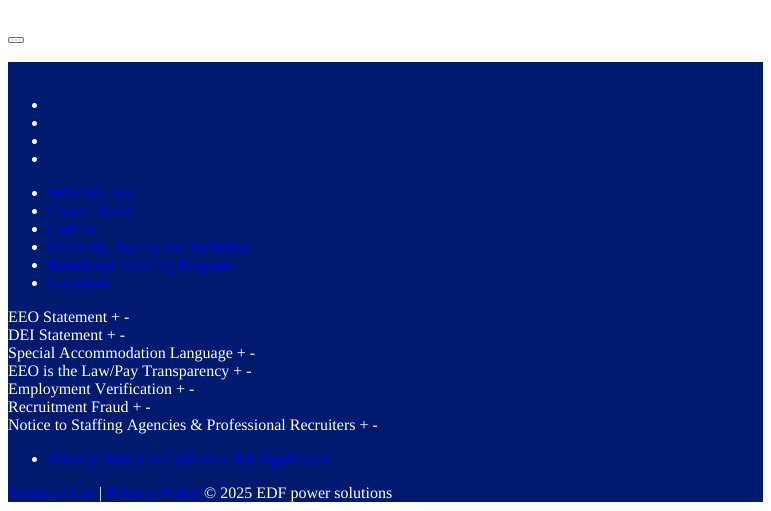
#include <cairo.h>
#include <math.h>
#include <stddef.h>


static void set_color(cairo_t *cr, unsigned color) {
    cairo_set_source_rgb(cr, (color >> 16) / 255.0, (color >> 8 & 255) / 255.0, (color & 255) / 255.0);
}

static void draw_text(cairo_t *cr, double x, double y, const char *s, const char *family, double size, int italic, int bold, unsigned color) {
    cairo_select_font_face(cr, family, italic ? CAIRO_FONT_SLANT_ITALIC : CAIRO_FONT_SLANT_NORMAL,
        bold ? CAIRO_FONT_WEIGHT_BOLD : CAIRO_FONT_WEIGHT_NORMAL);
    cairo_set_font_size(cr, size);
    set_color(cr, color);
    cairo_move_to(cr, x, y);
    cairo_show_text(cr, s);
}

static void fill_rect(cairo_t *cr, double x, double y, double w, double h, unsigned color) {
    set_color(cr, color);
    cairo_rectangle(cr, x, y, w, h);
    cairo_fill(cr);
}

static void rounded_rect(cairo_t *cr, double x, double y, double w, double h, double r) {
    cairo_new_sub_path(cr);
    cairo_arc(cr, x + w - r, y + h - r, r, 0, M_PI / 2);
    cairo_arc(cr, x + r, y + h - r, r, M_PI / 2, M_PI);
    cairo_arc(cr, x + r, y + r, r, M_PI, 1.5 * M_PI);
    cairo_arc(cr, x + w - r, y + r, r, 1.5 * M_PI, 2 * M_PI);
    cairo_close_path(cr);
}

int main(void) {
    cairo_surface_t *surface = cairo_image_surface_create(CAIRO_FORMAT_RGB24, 771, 511);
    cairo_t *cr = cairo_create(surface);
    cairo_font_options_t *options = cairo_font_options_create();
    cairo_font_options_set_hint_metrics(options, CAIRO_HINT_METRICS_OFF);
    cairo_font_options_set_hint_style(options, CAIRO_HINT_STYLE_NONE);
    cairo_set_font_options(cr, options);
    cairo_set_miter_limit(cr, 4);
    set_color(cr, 0xFFFFFF);
    cairo_paint(cr);
    set_color(cr, 0xEFEFEF);
    rounded_rect(cr, 8.5, 37.5, 15, 5, 1.5);
    cairo_fill_preserve(cr);
    set_color(cr, 0x767676);
    cairo_set_line_width(cr, 1);
    cairo_stroke(cr);
    fill_rect(cr, 8, 62, 755, 440, 0x001A70);
    set_color(cr, 0xFFFFFF);
    cairo_arc(cr, 34.5, 105.5, 2.5, 0, 2 * M_PI);
    cairo_fill(cr);
    cairo_arc(cr, 34.5, 123.5, 2.5, 0, 2 * M_PI);
    cairo_fill(cr);
    cairo_arc(cr, 34.5, 141.5, 2.5, 0, 2 * M_PI);
    cairo_fill(cr);
    cairo_arc(cr, 34.5, 159.5, 2.5, 0, 2 * M_PI);
    cairo_fill(cr);
    cairo_arc(cr, 34.5, 193.5, 2.5, 0, 2 * M_PI);
    cairo_fill(cr);
    draw_text(cr, 48, 198, "Who We Are", "Liberation Serif", 16, 0, 0, 0x0000EE);
    fill_rect(cr, 48, 199, 85, 1, 0x0000EE);
    set_color(cr, 0xFFFFFF);
    cairo_new_path(cr);
    cairo_arc(cr, 34.5, 211.5, 2.5, 0, 2 * M_PI);
    cairo_fill(cr);
    draw_text(cr, 48, 216, "Career Areas", "Liberation Serif", 16, 0, 0, 0x0000EE);
    fill_rect(cr, 48, 217, 84, 1, 0x0000EE);
    set_color(cr, 0xFFFFFF);
    cairo_new_path(cr);
    cairo_arc(cr, 34.5, 229.5, 2.5, 0, 2 * M_PI);
    cairo_fill(cr);
    draw_text(cr, 48, 234, "Culture", "Liberation Serif", 16, 0, 0, 0x0000EE);
    fill_rect(cr, 48, 235, 48, 1, 0x0000EE);
    set_color(cr, 0xFFFFFF);
    cairo_new_path(cr);
    cairo_arc(cr, 34.5, 247.5, 2.5, 0, 2 * M_PI);
    cairo_fill(cr);
    fill_rect(cr, 48, 253, 201, 1, 0x0000EE);
    draw_text(cr, 48, 252, "Diversity, Equity and Inclusion", "Liberation Serif", 16, 0, 0, 0x0000EE);
    set_color(cr, 0xFFFFFF);
    cairo_new_path(cr);
    cairo_arc(cr, 34.5, 265.5, 2.5, 0, 2 * M_PI);
    cairo_fill(cr);
    fill_rect(cr, 48, 271, 185, 1, 0x0000EE);
    draw_text(cr, 48, 270, "Rotational Training Program", "Liberation Serif", 16, 0, 0, 0x0000EE);
    set_color(cr, 0xFFFFFF);
    cairo_new_path(cr);
    cairo_arc(cr, 34.5, 283.5, 2.5, 0, 2 * M_PI);
    cairo_fill(cr);
    draw_text(cr, 48, 288, "Locations", "Liberation Serif", 16, 0, 0, 0x0000EE);
    fill_rect(cr, 48, 289, 63, 1, 0x0000EE);
    draw_text(cr, 8, 322, "EEO Statement + -", "Liberation Serif", 16, 0, 0, 0xFFFFFF);
    draw_text(cr, 8, 340, "DEI Statement + -", "Liberation Serif", 16, 0, 0, 0xFFFFFF);
    draw_text(cr, 8, 358, "Special Accommodation Language + -", "Liberation Serif", 16, 0, 0, 0xFFFFFF);
    draw_text(cr, 8, 376, "EEO is the Law/Pay Transparency + -", "Liberation Serif", 16, 0, 0, 0xFFFFFF);
    draw_text(cr, 8, 394, "Employment Verification + -", "Liberation Serif", 16, 0, 0, 0xFFFFFF);
    draw_text(cr, 8, 412, "Recruitment Fraud + -", "Liberation Serif", 16, 0, 0, 0xFFFFFF);
    draw_text(cr, 8, 430, "Notice to Staffing Agencies & Professional Recruiters + -", "Liberation Serif", 16, 0, 0, 0xFFFFFF);
    cairo_new_path(cr);
    cairo_arc(cr, 34.5, 459.5, 2.5, 0, 2 * M_PI);
    cairo_fill(cr);
    fill_rect(cr, 48, 465, 280, 1, 0x0000EE);
    draw_text(cr, 48, 464, "Privacy Notice to California Job Applicants", "Liberation Serif", 16, 0, 0, 0x0000EE);
    draw_text(cr, 8, 498, "Terms of Use", "Liberation Serif", 16, 0, 0, 0x0000EE);
    fill_rect(cr, 8, 499, 87, 1, 0x0000EE);
    draw_text(cr, 99, 498, "|", "Liberation Serif", 16, 0, 0, 0xFFFFFF);
    fill_rect(cr, 106, 499, 94, 1, 0x0000EE);
    draw_text(cr, 106, 498, "Privacy Policy", "Liberation Serif", 16, 0, 0, 0x0000EE);
    draw_text(cr, 204, 498, "© 2025 EDF power solutions", "Liberation Serif", 16, 0, 0, 0xFFFFFF);
    cairo_surface_write_to_png(surface, "output.png");
    cairo_font_options_destroy(options);
    cairo_destroy(cr);
    cairo_surface_destroy(surface);
    return 0;
}
